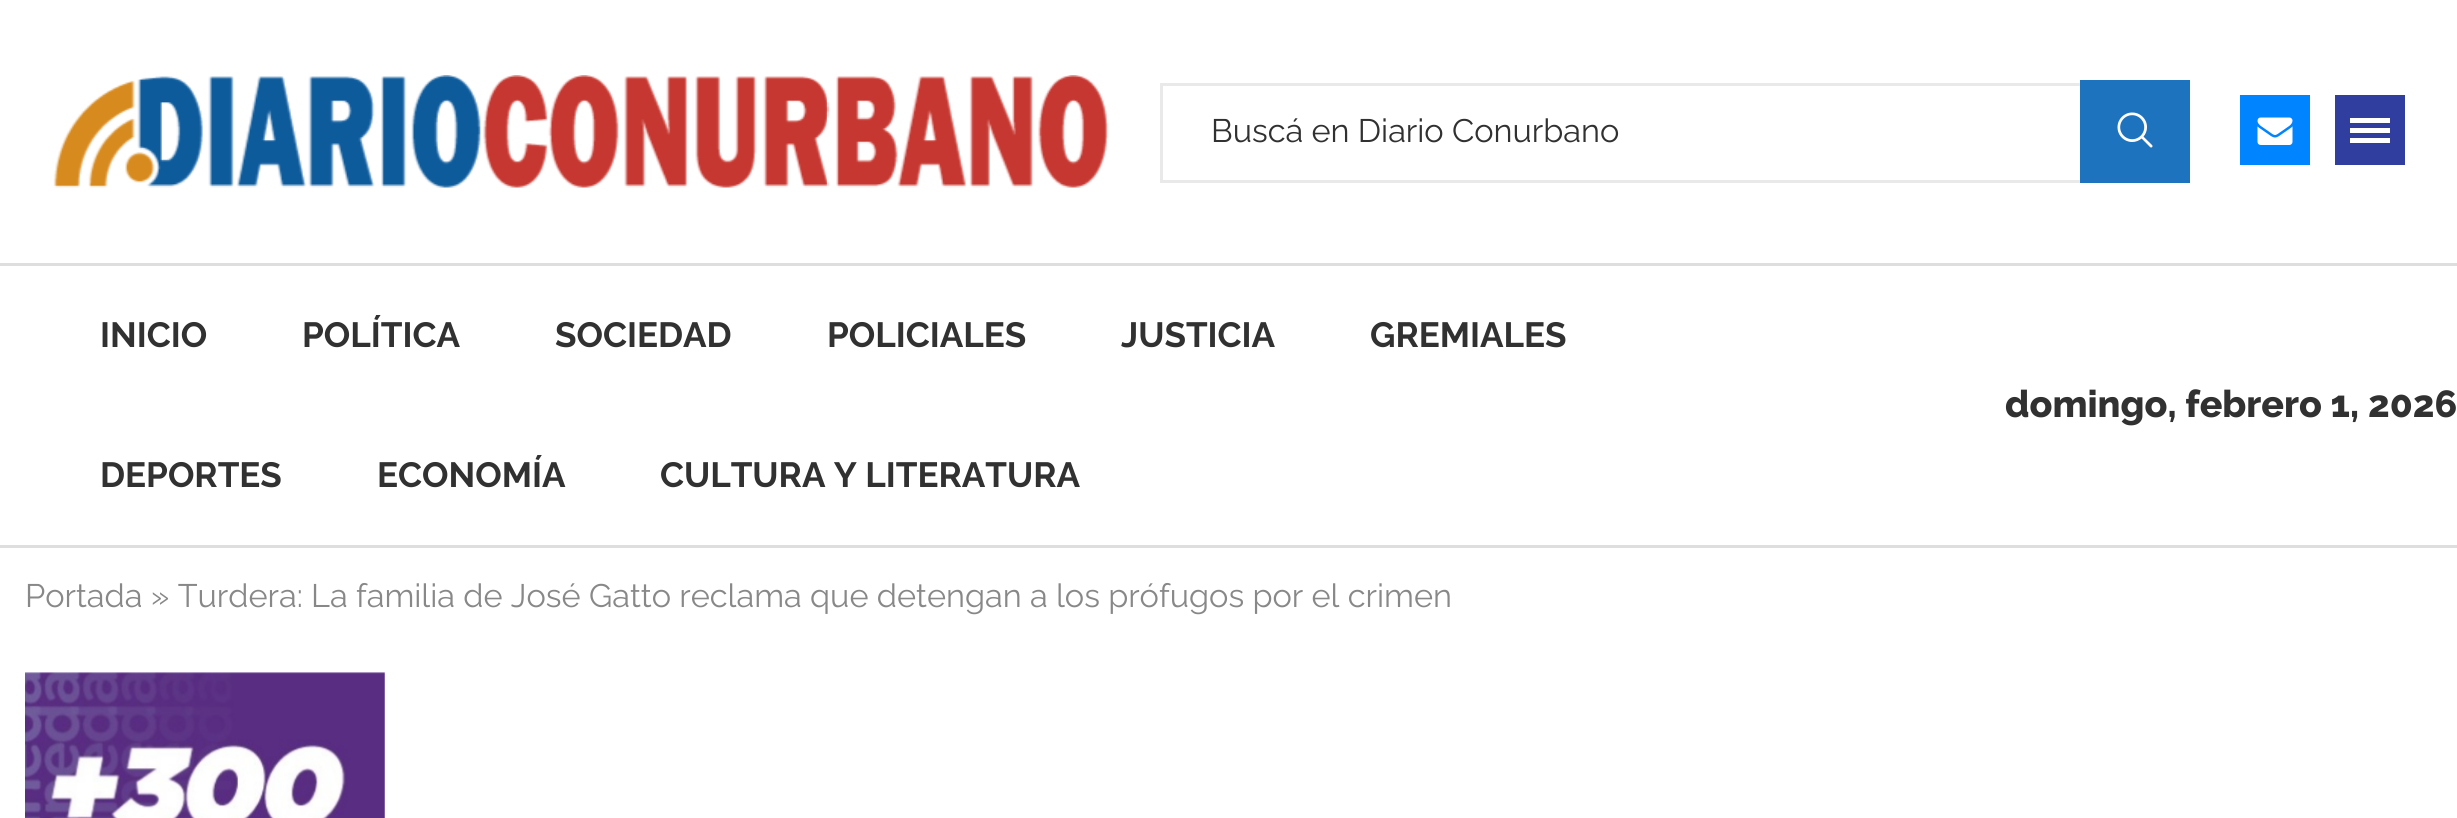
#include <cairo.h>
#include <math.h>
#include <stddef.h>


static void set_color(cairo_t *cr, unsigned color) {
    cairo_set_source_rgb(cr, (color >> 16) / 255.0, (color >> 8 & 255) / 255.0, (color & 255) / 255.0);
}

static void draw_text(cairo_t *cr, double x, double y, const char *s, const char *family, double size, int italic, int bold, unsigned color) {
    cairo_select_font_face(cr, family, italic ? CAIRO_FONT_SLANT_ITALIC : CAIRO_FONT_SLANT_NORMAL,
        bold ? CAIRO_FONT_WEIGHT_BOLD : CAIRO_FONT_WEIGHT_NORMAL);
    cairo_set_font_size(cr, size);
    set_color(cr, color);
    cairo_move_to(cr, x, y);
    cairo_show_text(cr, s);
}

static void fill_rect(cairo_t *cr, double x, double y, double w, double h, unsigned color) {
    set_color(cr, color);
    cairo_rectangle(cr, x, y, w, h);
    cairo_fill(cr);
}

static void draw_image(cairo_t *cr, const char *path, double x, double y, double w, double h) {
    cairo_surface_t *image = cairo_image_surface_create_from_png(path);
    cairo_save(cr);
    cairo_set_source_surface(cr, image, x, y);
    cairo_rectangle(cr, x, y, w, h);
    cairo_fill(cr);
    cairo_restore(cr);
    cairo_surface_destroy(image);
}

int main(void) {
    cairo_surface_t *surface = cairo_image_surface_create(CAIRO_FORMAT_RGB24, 2457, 818);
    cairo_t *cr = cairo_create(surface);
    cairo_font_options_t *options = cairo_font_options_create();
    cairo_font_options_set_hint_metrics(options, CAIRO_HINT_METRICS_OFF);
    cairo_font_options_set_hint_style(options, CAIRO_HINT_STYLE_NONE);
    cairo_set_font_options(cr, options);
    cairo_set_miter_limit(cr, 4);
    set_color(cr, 0xFFFFFF);
    cairo_paint(cr);
    draw_image(cr, "assets/img1.png", 53, 75, 1056, 113);
    fill_rect(cr, 1160, 83, 920, 3, 0xE9E9E9);
    fill_rect(cr, 1160, 180, 920, 3, 0xE9E9E9);
    fill_rect(cr, 1160, 83, 3, 100, 0xE9E9E9);
    draw_text(cr, 1211, 142, "Buscá en Diario Conurbano", "Raleway", 32.5, 0, 0, 0x313131);
    fill_rect(cr, 2080, 80, 110, 103, 0x1E73BE);
    draw_image(cr, "assets/img2.png", 2117, 112, 36, 36);
    fill_rect(cr, 2240, 95, 70, 70, 0x0084FF);
    draw_image(cr, "assets/img3.png", 2257, 117, 36, 28);
    fill_rect(cr, 2335, 95, 70, 70, 0x303F9F);
    fill_rect(cr, 2350, 118, 40, 5, 0xFFFFFF);
    fill_rect(cr, 2350, 138, 40, 5, 0xFFFFFF);
    fill_rect(cr, 2350, 128, 40, 5, 0xFFFFFF);
    fill_rect(cr, 0, 263, 2457, 3, 0xDEDEDE);
    fill_rect(cr, 0, 545, 2457, 3, 0xDEDEDE);
    draw_text(cr, 100, 347, "INICIO", "Raleway", 35, 0, 1, 0x313131);
    draw_text(cr, 302, 347, "POLÍTICA", "Raleway", 35, 0, 1, 0x313131);
    draw_text(cr, 555, 347, "SOCIEDAD", "Raleway", 35, 0, 1, 0x313131);
    draw_text(cr, 827, 347, "POLICIALES", "Raleway", 35, 0, 1, 0x313131);
    draw_text(cr, 1121, 347, "JUSTICIA", "Raleway", 35, 0, 1, 0x313131);
    draw_text(cr, 1370, 347, "GREMIALES", "Raleway", 35, 0, 1, 0x313131);
    draw_text(cr, 100, 487, "DEPORTES", "Raleway", 35, 0, 1, 0x313131);
    draw_text(cr, 377, 487, "ECONOMÍA", "Raleway", 35, 0, 1, 0x313131);
    draw_text(cr, 660, 487, "CULTURA Y LITERATURA", "Raleway", 35, 0, 1, 0x313131);
    draw_text(cr, 2005, 417, "domingo, febrero 1, 2026", "Raleway ExtraBold", 37.5, 0, 0, 0x313131);
    draw_text(cr, 25, 607, "Portada » Turdera: La familia de José Gatto reclama que detengan a los prófugos por el crimen", "Raleway", 32.5, 0, 0, 0x888888);
    draw_image(cr, "assets/img4.png", 25, 672, 360, 146);
    cairo_surface_write_to_png(surface, "output.png");
    cairo_font_options_destroy(options);
    cairo_destroy(cr);
    cairo_surface_destroy(surface);
    return 0;
}
